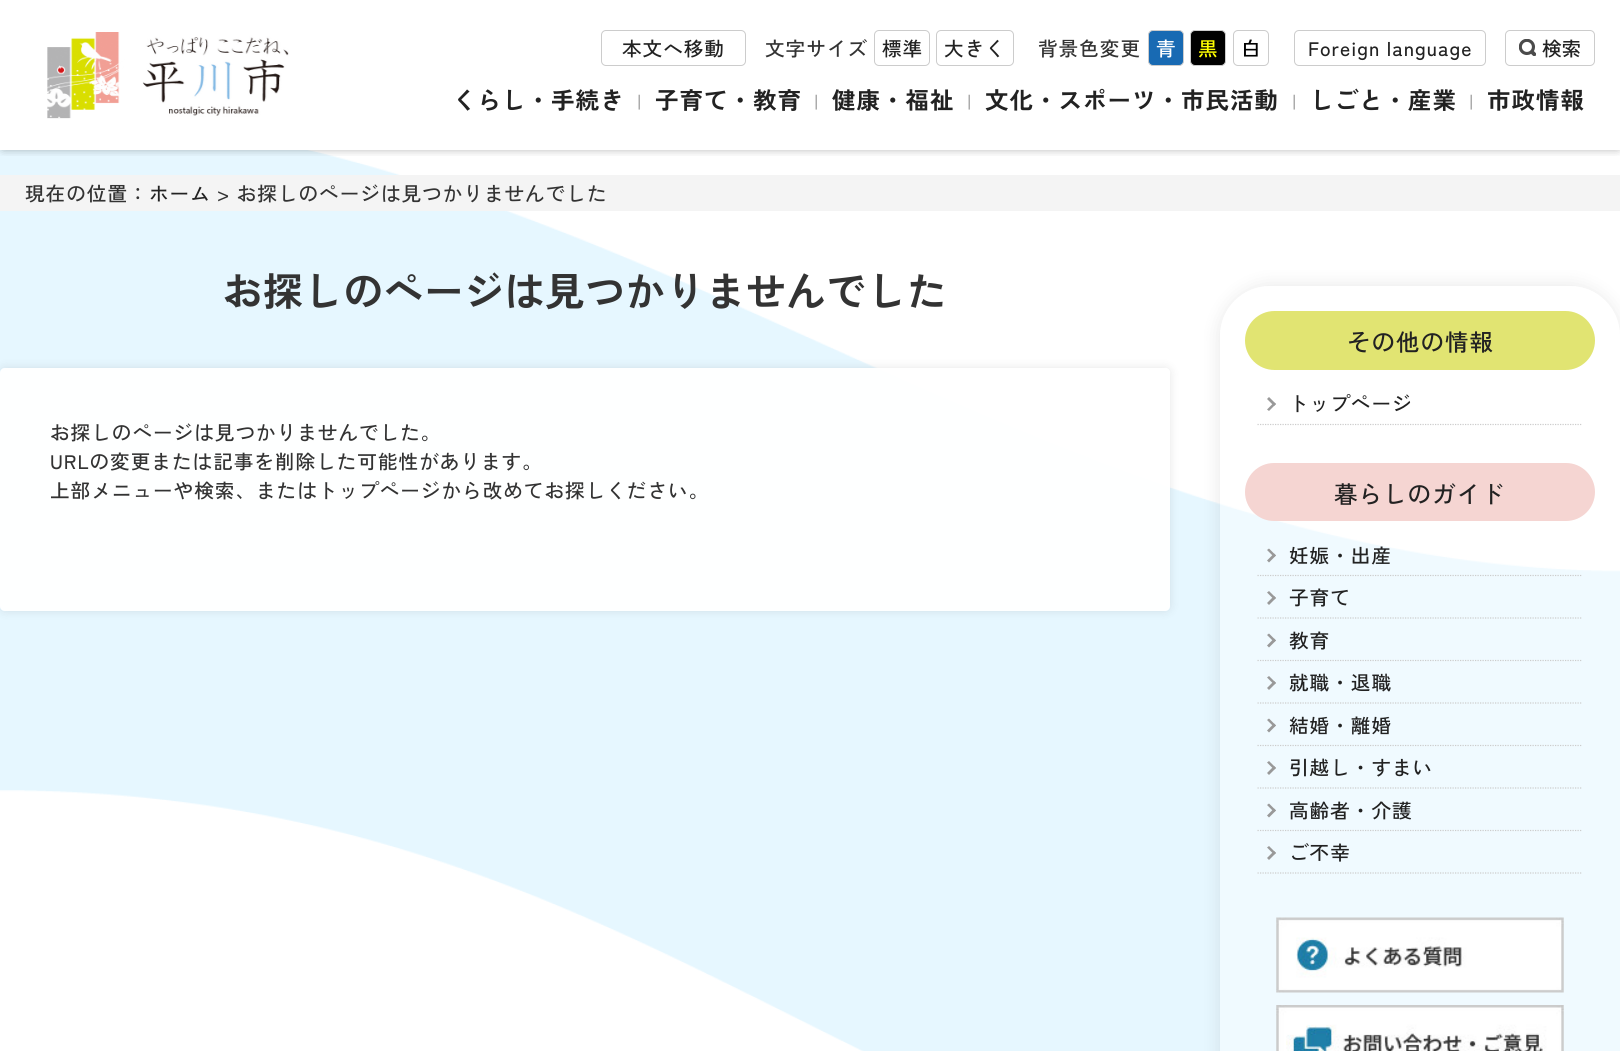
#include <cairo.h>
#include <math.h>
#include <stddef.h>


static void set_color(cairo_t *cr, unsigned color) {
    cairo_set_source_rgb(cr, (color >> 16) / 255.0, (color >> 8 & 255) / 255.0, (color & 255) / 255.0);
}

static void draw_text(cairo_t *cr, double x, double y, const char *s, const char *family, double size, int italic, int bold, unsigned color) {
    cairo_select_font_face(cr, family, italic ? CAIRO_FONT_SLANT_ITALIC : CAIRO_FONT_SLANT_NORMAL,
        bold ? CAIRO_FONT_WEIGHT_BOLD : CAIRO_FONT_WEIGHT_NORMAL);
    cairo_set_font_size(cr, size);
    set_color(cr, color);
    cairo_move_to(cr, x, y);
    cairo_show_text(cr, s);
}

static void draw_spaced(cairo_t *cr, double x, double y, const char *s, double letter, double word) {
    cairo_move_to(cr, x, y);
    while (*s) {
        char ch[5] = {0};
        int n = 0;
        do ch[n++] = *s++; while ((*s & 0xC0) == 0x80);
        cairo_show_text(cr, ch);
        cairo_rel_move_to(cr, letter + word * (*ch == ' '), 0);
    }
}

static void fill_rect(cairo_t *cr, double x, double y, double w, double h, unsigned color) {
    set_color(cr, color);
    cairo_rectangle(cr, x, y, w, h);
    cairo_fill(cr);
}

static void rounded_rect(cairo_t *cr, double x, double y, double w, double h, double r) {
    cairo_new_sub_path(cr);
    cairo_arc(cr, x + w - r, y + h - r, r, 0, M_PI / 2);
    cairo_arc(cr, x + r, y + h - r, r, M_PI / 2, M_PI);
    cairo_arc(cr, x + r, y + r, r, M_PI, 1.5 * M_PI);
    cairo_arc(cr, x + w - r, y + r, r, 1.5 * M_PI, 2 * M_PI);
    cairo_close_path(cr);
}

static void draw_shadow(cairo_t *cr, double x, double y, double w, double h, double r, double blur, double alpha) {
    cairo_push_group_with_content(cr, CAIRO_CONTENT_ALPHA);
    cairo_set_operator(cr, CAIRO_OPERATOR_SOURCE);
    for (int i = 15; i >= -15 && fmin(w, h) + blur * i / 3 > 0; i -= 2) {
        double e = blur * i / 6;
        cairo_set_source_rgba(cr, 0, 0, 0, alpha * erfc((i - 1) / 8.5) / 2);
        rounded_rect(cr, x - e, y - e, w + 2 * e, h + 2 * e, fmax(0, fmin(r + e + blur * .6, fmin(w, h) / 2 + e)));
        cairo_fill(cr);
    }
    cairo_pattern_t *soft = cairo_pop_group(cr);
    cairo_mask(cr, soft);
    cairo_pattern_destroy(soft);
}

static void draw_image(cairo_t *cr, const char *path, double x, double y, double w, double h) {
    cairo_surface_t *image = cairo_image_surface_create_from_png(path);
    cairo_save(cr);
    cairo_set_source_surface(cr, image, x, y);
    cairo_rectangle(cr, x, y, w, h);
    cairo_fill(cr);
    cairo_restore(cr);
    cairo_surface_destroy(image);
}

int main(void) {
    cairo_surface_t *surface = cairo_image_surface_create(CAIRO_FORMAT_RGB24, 1620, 1051);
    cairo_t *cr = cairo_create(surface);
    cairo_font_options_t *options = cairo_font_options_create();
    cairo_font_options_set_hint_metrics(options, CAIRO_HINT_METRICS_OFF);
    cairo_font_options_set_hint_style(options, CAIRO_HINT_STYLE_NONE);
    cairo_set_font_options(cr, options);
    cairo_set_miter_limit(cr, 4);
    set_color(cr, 0xFFFFFF);
    cairo_paint(cr);
    draw_image(cr, "assets/img3.png", 0, 150, 1620, 901);
    cairo_save(cr);
    cairo_rectangle(cr, 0, 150, 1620, 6);
    cairo_clip(cr);
    set_color(cr, 0x000000);
    draw_shadow(cr, 3, 3, 1615, 145, 0, 5, 0.4);
    cairo_restore(cr);
    draw_image(cr, "assets/img1.png", 47, 32, 242, 87);
    rounded_rect(cr, 601.5, 30.5, 144, 35, 4.5);
    set_color(cr, 0xCCCCCC);
    cairo_set_line_width(cr, 1);
    cairo_stroke(cr);
    cairo_select_font_face(cr, "Zen Kaku Gothic Antique Medium", CAIRO_FONT_SLANT_NORMAL, CAIRO_FONT_WEIGHT_NORMAL);
    cairo_set_font_size(cr, 19.6);
    set_color(cr, 0x222222);
    draw_spaced(cr, 622, 56, "本文へ移動", 1, 0);
    set_color(cr, 0x333333);
    draw_spaced(cr, 765, 56, "文字サイズ", 1, 0);
    rounded_rect(cr, 874.5, 30.5, 55, 35, 4.5);
    set_color(cr, 0xCCCCCC);
    cairo_stroke(cr);
    set_color(cr, 0x222222);
    draw_spaced(cr, 882, 56, "標準", 1, 0);
    rounded_rect(cr, 936.5, 30.5, 77, 35, 4.5);
    set_color(cr, 0xCCCCCC);
    cairo_stroke(cr);
    set_color(cr, 0x222222);
    draw_spaced(cr, 944, 56, "大きく", 1, 0);
    set_color(cr, 0x333333);
    draw_spaced(cr, 1038, 56, "背景色変更", 1, 0);
    set_color(cr, 0x186AB3);
    rounded_rect(cr, 1148.5, 30.5, 35, 35, 4.5);
    cairo_fill_preserve(cr);
    set_color(cr, 0xCCCCCC);
    cairo_stroke(cr);
    set_color(cr, 0xFFFFFF);
    draw_spaced(cr, 1156, 56, "青", 1, 0);
    set_color(cr, 0x000000);
    rounded_rect(cr, 1190.5, 30.5, 35, 35, 4.5);
    cairo_fill_preserve(cr);
    set_color(cr, 0xCCCCCC);
    cairo_stroke(cr);
    set_color(cr, 0xFFFF00);
    draw_spaced(cr, 1198, 56, "黒", 1, 0);
    rounded_rect(cr, 1233.5, 30.5, 35, 35, 4.5);
    set_color(cr, 0xCCCCCC);
    cairo_stroke(cr);
    set_color(cr, 0x000000);
    draw_spaced(cr, 1241, 56, "白", 1, 0);
    rounded_rect(cr, 1294.5, 30.5, 191, 35, 4.5);
    set_color(cr, 0xCCCCCC);
    cairo_stroke(cr);
    set_color(cr, 0x222222);
    draw_spaced(cr, 1308, 56, "Foreign language", 1, 0);
    rounded_rect(cr, 1505.5, 30.5, 89, 35, 4.5);
    set_color(cr, 0xCCCCCC);
    cairo_stroke(cr);
    draw_image(cr, "assets/img2.png", 1519, 39, 17, 17);
    draw_text(cr, 1542, 56, "検索", "Zen Kaku Gothic Antique Medium", 19.6, 0, 0, 0x222222);
    cairo_select_font_face(cr, "Zen Kaku Gothic Antique", CAIRO_FONT_SLANT_NORMAL, CAIRO_FONT_WEIGHT_BOLD);
    cairo_set_font_size(cr, 23.5);
    draw_spaced(cr, 453, 109, "くらし・手続き", 1, 0);
    cairo_select_font_face(cr, "Zen Kaku Gothic Antique Medium", CAIRO_FONT_SLANT_NORMAL, CAIRO_FONT_WEIGHT_NORMAL);
    cairo_set_font_size(cr, 19.6);
    set_color(cr, 0xAAAAAA);
    draw_spaced(cr, 637, 109, "|", 1, 0);
    cairo_select_font_face(cr, "Zen Kaku Gothic Antique", CAIRO_FONT_SLANT_NORMAL, CAIRO_FONT_WEIGHT_BOLD);
    cairo_set_font_size(cr, 23.5);
    set_color(cr, 0x222222);
    draw_spaced(cr, 655, 109, "子育て・教育", 1, 0);
    cairo_select_font_face(cr, "Zen Kaku Gothic Antique Medium", CAIRO_FONT_SLANT_NORMAL, CAIRO_FONT_WEIGHT_NORMAL);
    cairo_set_font_size(cr, 19.6);
    set_color(cr, 0xAAAAAA);
    draw_spaced(cr, 814, 109, "|", 1, 0);
    cairo_select_font_face(cr, "Zen Kaku Gothic Antique", CAIRO_FONT_SLANT_NORMAL, CAIRO_FONT_WEIGHT_BOLD);
    cairo_set_font_size(cr, 23.5);
    set_color(cr, 0x222222);
    draw_spaced(cr, 832, 109, "健康・福祉", 1, 0);
    cairo_select_font_face(cr, "Zen Kaku Gothic Antique Medium", CAIRO_FONT_SLANT_NORMAL, CAIRO_FONT_WEIGHT_NORMAL);
    cairo_set_font_size(cr, 19.6);
    set_color(cr, 0xAAAAAA);
    draw_spaced(cr, 967, 109, "|", 1, 0);
    cairo_select_font_face(cr, "Zen Kaku Gothic Antique", CAIRO_FONT_SLANT_NORMAL, CAIRO_FONT_WEIGHT_BOLD);
    cairo_set_font_size(cr, 23.5);
    set_color(cr, 0x222222);
    draw_spaced(cr, 985, 109, "文化・スポーツ・市民活動", 1, 0);
    cairo_select_font_face(cr, "Zen Kaku Gothic Antique Medium", CAIRO_FONT_SLANT_NORMAL, CAIRO_FONT_WEIGHT_NORMAL);
    cairo_set_font_size(cr, 19.6);
    set_color(cr, 0xAAAAAA);
    draw_spaced(cr, 1292, 109, "|", 1, 0);
    cairo_select_font_face(cr, "Zen Kaku Gothic Antique", CAIRO_FONT_SLANT_NORMAL, CAIRO_FONT_WEIGHT_BOLD);
    cairo_set_font_size(cr, 23.5);
    set_color(cr, 0x222222);
    draw_spaced(cr, 1310, 109, "しごと・産業", 1, 0);
    cairo_select_font_face(cr, "Zen Kaku Gothic Antique Medium", CAIRO_FONT_SLANT_NORMAL, CAIRO_FONT_WEIGHT_NORMAL);
    cairo_set_font_size(cr, 19.6);
    set_color(cr, 0xAAAAAA);
    draw_spaced(cr, 1469, 109, "|", 1, 0);
    cairo_select_font_face(cr, "Zen Kaku Gothic Antique", CAIRO_FONT_SLANT_NORMAL, CAIRO_FONT_WEIGHT_BOLD);
    cairo_set_font_size(cr, 23.5);
    set_color(cr, 0x222222);
    draw_spaced(cr, 1487, 109, "市政情報", 1, 0);
    fill_rect(cr, 0, 175, 1620, 36, 0xF4F4F4);
    cairo_select_font_face(cr, "Zen Kaku Gothic Antique Medium", CAIRO_FONT_SLANT_NORMAL, CAIRO_FONT_WEIGHT_NORMAL);
    cairo_set_font_size(cr, 19.6);
    set_color(cr, 0x333333);
    draw_spaced(cr, 25, 201, "現在の位置：", 1, 0);
    set_color(cr, 0x222222);
    draw_spaced(cr, 149, 201, "ホーム", 1, 0);
    set_color(cr, 0x333333);
    draw_spaced(cr, 217, 201, "> お探しのページは見つかりませんでした", 1, 0);
    cairo_select_font_face(cr, "Zen Kaku Gothic Antique", CAIRO_FONT_SLANT_NORMAL, CAIRO_FONT_WEIGHT_BOLD);
    cairo_set_font_size(cr, 39.25);
    draw_spaced(cr, 223, 306, "お探しのページは見つかりませんでした", 1, 0);
    cairo_save(cr);
    cairo_set_fill_rule(cr, CAIRO_FILL_RULE_EVEN_ODD);
    cairo_new_path(cr);
    cairo_move_to(cr, 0, 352);
    cairo_line_to(cr, 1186, 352);
    cairo_line_to(cr, 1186, 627);
    cairo_line_to(cr, 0, 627);
    cairo_close_path(cr);
    cairo_move_to(cr, 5, 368);
    cairo_line_to(cr, 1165, 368);
    cairo_curve_to(cr, 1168, 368, 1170, 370, 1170, 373);
    cairo_line_to(cr, 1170, 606);
    cairo_curve_to(cr, 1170, 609, 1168, 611, 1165, 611);
    cairo_line_to(cr, 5, 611);
    cairo_curve_to(cr, 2, 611, 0, 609, 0, 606);
    cairo_line_to(cr, 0, 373);
    cairo_curve_to(cr, 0, 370, 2, 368, 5, 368);
    cairo_close_path(cr);
    cairo_clip(cr);
    set_color(cr, 0x000000);
    draw_shadow(cr, 0, 368, 1170, 243, 5, 5, 0.1);
    cairo_restore(cr);
    cairo_set_source_rgba(cr, 1, 1, 1, 0.95);
    rounded_rect(cr, 0, 368, 1170, 243, 5);
    cairo_fill(cr);
    cairo_select_font_face(cr, "Zen Kaku Gothic Antique Medium", CAIRO_FONT_SLANT_NORMAL, CAIRO_FONT_WEIGHT_NORMAL);
    cairo_set_font_size(cr, 19.6);
    set_color(cr, 0x333333);
    draw_spaced(cr, 50, 440, "お探しのページは見つかりませんでした。", 1, 0);
    draw_spaced(cr, 50, 469, "URLの変更または記事を削除した可能性があります。", 1, 0);
    draw_spaced(cr, 50, 498, "上部メニューや検索、またはトップページから改めてお探しください。", 1, 0);
    cairo_save(cr);
    cairo_set_fill_rule(cr, CAIRO_FILL_RULE_EVEN_ODD);
    cairo_new_path(cr);
    cairo_move_to(cr, 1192, 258);
    cairo_line_to(cr, 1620, 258);
    cairo_line_to(cr, 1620, 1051);
    cairo_line_to(cr, 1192, 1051);
    cairo_close_path(cr);
    cairo_move_to(cr, 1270, 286);
    cairo_line_to(cr, 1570, 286);
    cairo_curve_to(cr, 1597.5, 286, 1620, 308.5, 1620, 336);
    cairo_line_to(cr, 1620, 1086);
    cairo_curve_to(cr, 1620, 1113.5, 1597.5, 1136, 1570, 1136);
    cairo_line_to(cr, 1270, 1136);
    cairo_curve_to(cr, 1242.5, 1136, 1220, 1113.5, 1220, 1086);
    cairo_line_to(cr, 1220, 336);
    cairo_curve_to(cr, 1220, 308.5, 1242.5, 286, 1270, 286);
    cairo_close_path(cr);
    cairo_clip(cr);
    set_color(cr, 0x000000);
    draw_shadow(cr, 1220, 286, 400, 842, 50, 9, 0.1);
    cairo_restore(cr);
    cairo_set_source_rgba(cr, 1, 1, 1, 0.4);
    rounded_rect(cr, 1220, 286, 400, 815, 50);
    cairo_fill(cr);
    set_color(cr, 0xE1E472);
    rounded_rect(cr, 1245, 311, 350, 59, 29.5);
    cairo_fill(cr);
    cairo_set_font_size(cr, 23.5);
    set_color(cr, 0x222222);
    draw_spaced(cr, 1347, 351, "その他の情報", 1, 0);
    cairo_new_path(cr);
    cairo_move_to(cr, 1257.5, 424.5);
    cairo_line_to(cr, 1582.5, 424.5);
    set_color(cr, 0xCCCCCC);
    cairo_set_line_width(cr, 1.2);
    cairo_set_dash(cr, (double[]){1.25, 1.25}, 2, 0);
    cairo_stroke(cr);
    set_color(cr, 0x999999);
    cairo_new_path(cr);
    cairo_move_to(cr, 1267, 399);
    cairo_line_to(cr, 1269, 397);
    cairo_line_to(cr, 1276, 404);
    cairo_line_to(cr, 1274, 406);
    cairo_close_path(cr);
    cairo_fill(cr);
    cairo_new_path(cr);
    cairo_move_to(cr, 1267, 409.5);
    cairo_line_to(cr, 1274, 402.5);
    cairo_line_to(cr, 1276, 404);
    cairo_line_to(cr, 1269, 411);
    cairo_close_path(cr);
    cairo_fill(cr);
    cairo_set_font_size(cr, 19.6);
    set_color(cr, 0x222222);
    draw_spaced(cr, 1289, 411, "トップページ", 1, 0);
    set_color(cr, 0xF5D5D2);
    rounded_rect(cr, 1245, 463, 350, 58, 29);
    cairo_fill(cr);
    cairo_set_font_size(cr, 23.5);
    set_color(cr, 0x222222);
    draw_spaced(cr, 1334, 503, "暮らしのガイド", 1, 0);
    cairo_new_path(cr);
    cairo_move_to(cr, 1257.5, 575.5);
    cairo_line_to(cr, 1582.5, 575.5);
    set_color(cr, 0xCCCCCC);
    cairo_stroke(cr);
    set_color(cr, 0x999999);
    cairo_new_path(cr);
    cairo_move_to(cr, 1267, 550);
    cairo_line_to(cr, 1269, 548.5);
    cairo_line_to(cr, 1276, 555.5);
    cairo_line_to(cr, 1274, 557);
    cairo_close_path(cr);
    cairo_fill(cr);
    cairo_new_path(cr);
    cairo_move_to(cr, 1267, 560.5);
    cairo_line_to(cr, 1274, 553.5);
    cairo_line_to(cr, 1276, 555.5);
    cairo_line_to(cr, 1269, 562.5);
    cairo_close_path(cr);
    cairo_fill(cr);
    cairo_set_font_size(cr, 19.6);
    set_color(cr, 0x222222);
    draw_spaced(cr, 1289, 563, "妊娠・出産", 1, 0);
    cairo_new_path(cr);
    cairo_move_to(cr, 1257.5, 618);
    cairo_line_to(cr, 1582.5, 618);
    set_color(cr, 0xCCCCCC);
    cairo_stroke(cr);
    set_color(cr, 0x999999);
    cairo_new_path(cr);
    cairo_move_to(cr, 1267, 592.5);
    cairo_line_to(cr, 1269, 591);
    cairo_line_to(cr, 1276, 598);
    cairo_line_to(cr, 1274, 599.5);
    cairo_close_path(cr);
    cairo_fill(cr);
    cairo_new_path(cr);
    cairo_move_to(cr, 1267, 603);
    cairo_line_to(cr, 1274, 596);
    cairo_line_to(cr, 1276, 598);
    cairo_line_to(cr, 1269, 605);
    cairo_close_path(cr);
    cairo_fill(cr);
    set_color(cr, 0x222222);
    draw_spaced(cr, 1289, 605, "子育て", 1, 0);
    cairo_new_path(cr);
    cairo_move_to(cr, 1257.5, 660.5);
    cairo_line_to(cr, 1582.5, 660.5);
    set_color(cr, 0xCCCCCC);
    cairo_stroke(cr);
    set_color(cr, 0x999999);
    cairo_new_path(cr);
    cairo_move_to(cr, 1267, 635);
    cairo_line_to(cr, 1269, 633.5);
    cairo_line_to(cr, 1276, 640.5);
    cairo_line_to(cr, 1274, 642);
    cairo_close_path(cr);
    cairo_fill(cr);
    cairo_new_path(cr);
    cairo_move_to(cr, 1267, 645.5);
    cairo_line_to(cr, 1274, 638.5);
    cairo_line_to(cr, 1276, 640.5);
    cairo_line_to(cr, 1269, 647.5);
    cairo_close_path(cr);
    cairo_fill(cr);
    set_color(cr, 0x222222);
    draw_spaced(cr, 1289, 648, "教育", 1, 0);
    cairo_new_path(cr);
    cairo_move_to(cr, 1257.5, 703);
    cairo_line_to(cr, 1582.5, 703);
    set_color(cr, 0xCCCCCC);
    cairo_stroke(cr);
    set_color(cr, 0x999999);
    cairo_new_path(cr);
    cairo_move_to(cr, 1267, 677.5);
    cairo_line_to(cr, 1269, 676);
    cairo_line_to(cr, 1276, 683);
    cairo_line_to(cr, 1274, 684.5);
    cairo_close_path(cr);
    cairo_fill(cr);
    cairo_new_path(cr);
    cairo_move_to(cr, 1267, 688);
    cairo_line_to(cr, 1274, 681);
    cairo_line_to(cr, 1276, 683);
    cairo_line_to(cr, 1269, 690);
    cairo_close_path(cr);
    cairo_fill(cr);
    set_color(cr, 0x222222);
    draw_spaced(cr, 1289, 690, "就職・退職", 1, 0);
    cairo_new_path(cr);
    cairo_move_to(cr, 1257.5, 745.5);
    cairo_line_to(cr, 1582.5, 745.5);
    set_color(cr, 0xCCCCCC);
    cairo_stroke(cr);
    set_color(cr, 0x999999);
    cairo_new_path(cr);
    cairo_move_to(cr, 1267, 720);
    cairo_line_to(cr, 1269, 718.5);
    cairo_line_to(cr, 1276, 725.5);
    cairo_line_to(cr, 1274, 727);
    cairo_close_path(cr);
    cairo_fill(cr);
    cairo_new_path(cr);
    cairo_move_to(cr, 1267, 730.5);
    cairo_line_to(cr, 1274, 723.5);
    cairo_line_to(cr, 1276, 725.5);
    cairo_line_to(cr, 1269, 732.5);
    cairo_close_path(cr);
    cairo_fill(cr);
    set_color(cr, 0x222222);
    draw_spaced(cr, 1289, 733, "結婚・離婚", 1, 0);
    cairo_new_path(cr);
    cairo_move_to(cr, 1257.5, 788);
    cairo_line_to(cr, 1582.5, 788);
    set_color(cr, 0xCCCCCC);
    cairo_stroke(cr);
    set_color(cr, 0x999999);
    cairo_new_path(cr);
    cairo_move_to(cr, 1267, 762.5);
    cairo_line_to(cr, 1269, 761);
    cairo_line_to(cr, 1276, 768);
    cairo_line_to(cr, 1274, 769.5);
    cairo_close_path(cr);
    cairo_fill(cr);
    cairo_new_path(cr);
    cairo_move_to(cr, 1267, 773);
    cairo_line_to(cr, 1274, 766);
    cairo_line_to(cr, 1276, 768);
    cairo_line_to(cr, 1269, 775);
    cairo_close_path(cr);
    cairo_fill(cr);
    set_color(cr, 0x222222);
    draw_spaced(cr, 1289, 775, "引越し・すまい", 1, 0);
    cairo_new_path(cr);
    cairo_move_to(cr, 1257.5, 830.5);
    cairo_line_to(cr, 1582.5, 830.5);
    set_color(cr, 0xCCCCCC);
    cairo_stroke(cr);
    set_color(cr, 0x999999);
    cairo_new_path(cr);
    cairo_move_to(cr, 1267, 805);
    cairo_line_to(cr, 1269, 803.5);
    cairo_line_to(cr, 1276, 810.5);
    cairo_line_to(cr, 1274, 812);
    cairo_close_path(cr);
    cairo_fill(cr);
    cairo_new_path(cr);
    cairo_move_to(cr, 1267, 815.5);
    cairo_line_to(cr, 1274, 808.5);
    cairo_line_to(cr, 1276, 810.5);
    cairo_line_to(cr, 1269, 817.5);
    cairo_close_path(cr);
    cairo_fill(cr);
    set_color(cr, 0x222222);
    draw_spaced(cr, 1289, 818, "高齢者・介護", 1, 0);
    cairo_new_path(cr);
    cairo_move_to(cr, 1257.5, 873);
    cairo_line_to(cr, 1582.5, 873);
    set_color(cr, 0xCCCCCC);
    cairo_stroke(cr);
    set_color(cr, 0x999999);
    cairo_new_path(cr);
    cairo_move_to(cr, 1267, 847.5);
    cairo_line_to(cr, 1269, 846);
    cairo_line_to(cr, 1276, 853);
    cairo_line_to(cr, 1274, 854.5);
    cairo_close_path(cr);
    cairo_fill(cr);
    cairo_new_path(cr);
    cairo_move_to(cr, 1267, 858);
    cairo_line_to(cr, 1274, 851);
    cairo_line_to(cr, 1276, 853);
    cairo_line_to(cr, 1269, 860);
    cairo_close_path(cr);
    cairo_fill(cr);
    set_color(cr, 0x222222);
    draw_spaced(cr, 1289, 860, "ご不幸", 1, 0);
    draw_image(cr, "assets/img4.png", 1276, 917, 288, 76);
    draw_image(cr, "assets/img5.png", 1276, 1005, 288, 46);
    cairo_surface_write_to_png(surface, "output.png");
    cairo_font_options_destroy(options);
    cairo_destroy(cr);
    cairo_surface_destroy(surface);
    return 0;
}
